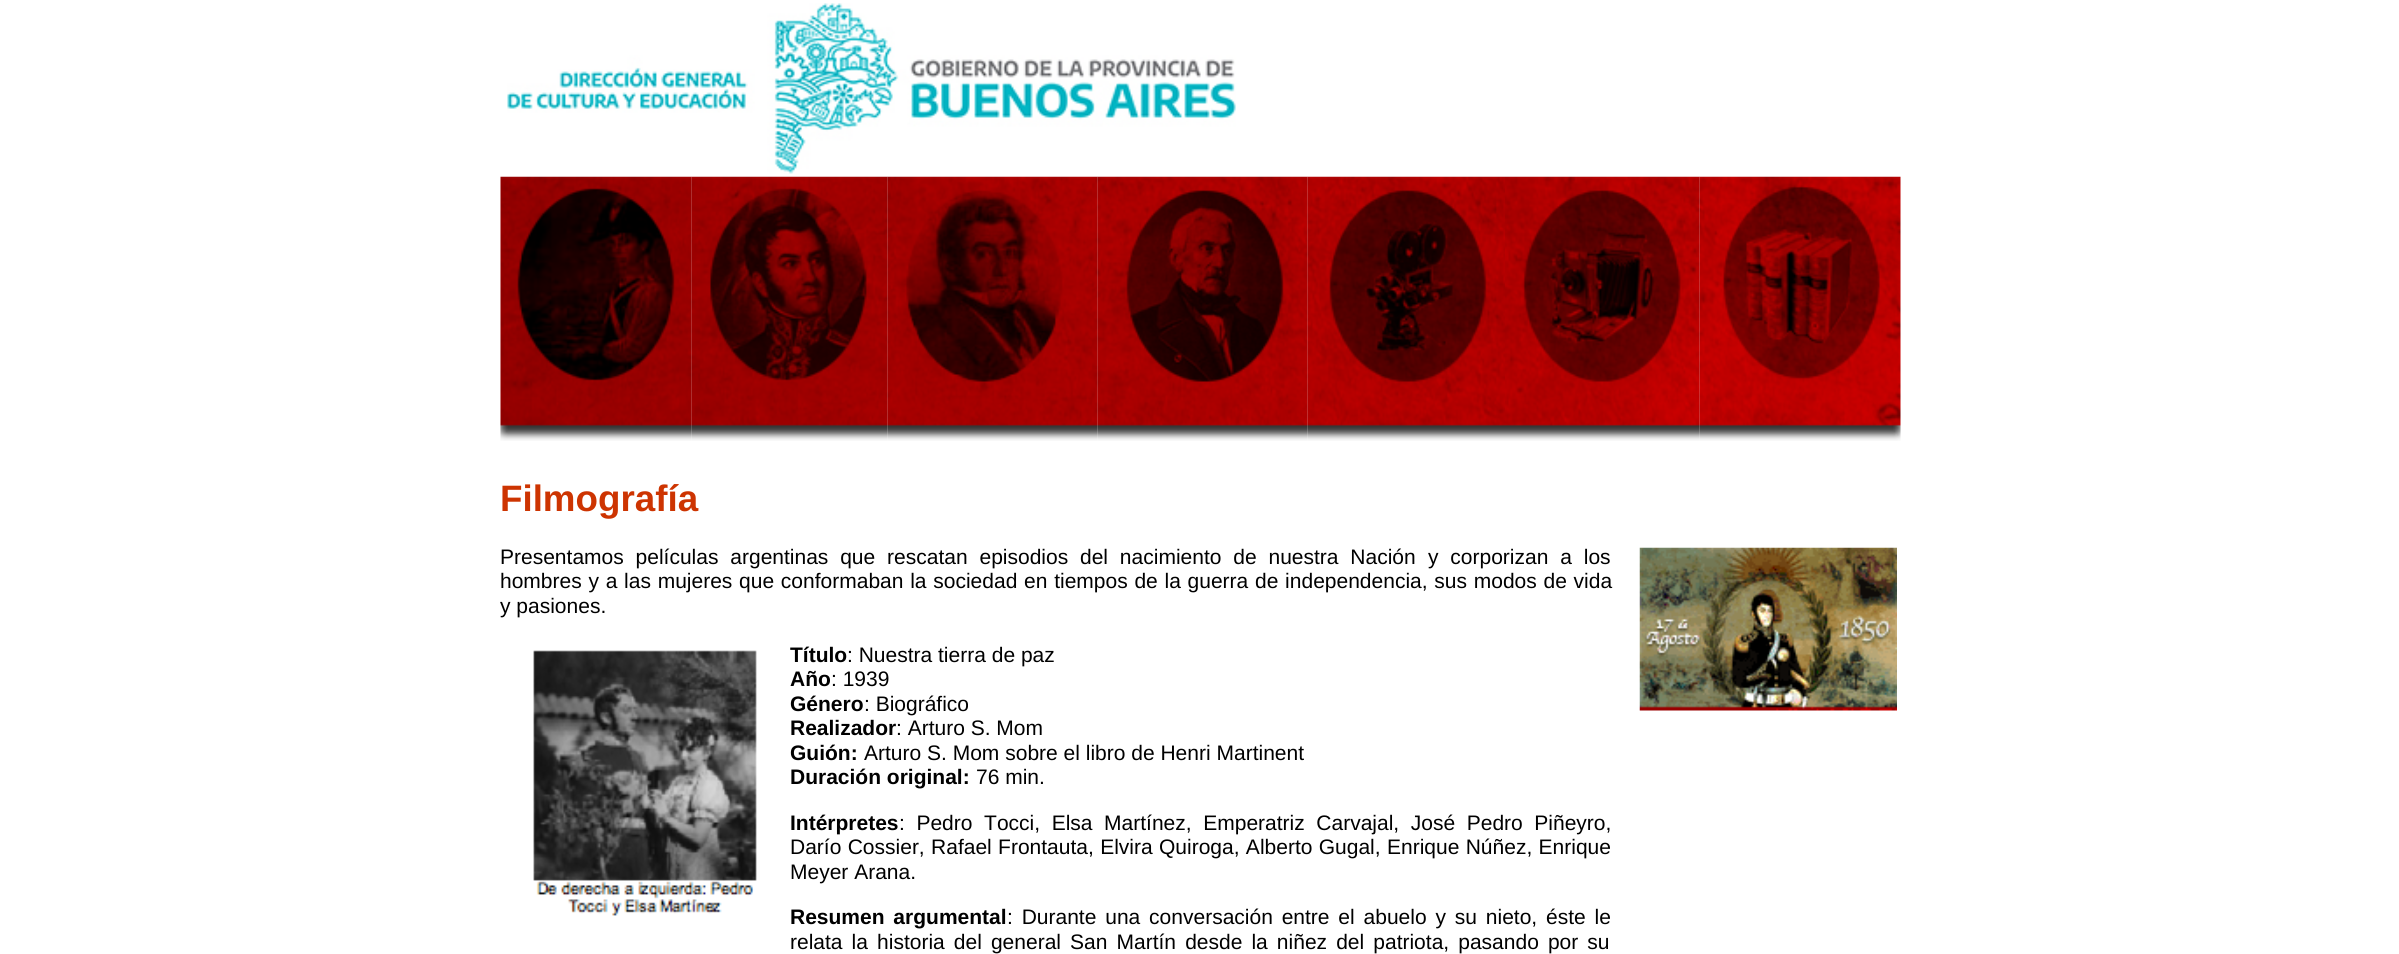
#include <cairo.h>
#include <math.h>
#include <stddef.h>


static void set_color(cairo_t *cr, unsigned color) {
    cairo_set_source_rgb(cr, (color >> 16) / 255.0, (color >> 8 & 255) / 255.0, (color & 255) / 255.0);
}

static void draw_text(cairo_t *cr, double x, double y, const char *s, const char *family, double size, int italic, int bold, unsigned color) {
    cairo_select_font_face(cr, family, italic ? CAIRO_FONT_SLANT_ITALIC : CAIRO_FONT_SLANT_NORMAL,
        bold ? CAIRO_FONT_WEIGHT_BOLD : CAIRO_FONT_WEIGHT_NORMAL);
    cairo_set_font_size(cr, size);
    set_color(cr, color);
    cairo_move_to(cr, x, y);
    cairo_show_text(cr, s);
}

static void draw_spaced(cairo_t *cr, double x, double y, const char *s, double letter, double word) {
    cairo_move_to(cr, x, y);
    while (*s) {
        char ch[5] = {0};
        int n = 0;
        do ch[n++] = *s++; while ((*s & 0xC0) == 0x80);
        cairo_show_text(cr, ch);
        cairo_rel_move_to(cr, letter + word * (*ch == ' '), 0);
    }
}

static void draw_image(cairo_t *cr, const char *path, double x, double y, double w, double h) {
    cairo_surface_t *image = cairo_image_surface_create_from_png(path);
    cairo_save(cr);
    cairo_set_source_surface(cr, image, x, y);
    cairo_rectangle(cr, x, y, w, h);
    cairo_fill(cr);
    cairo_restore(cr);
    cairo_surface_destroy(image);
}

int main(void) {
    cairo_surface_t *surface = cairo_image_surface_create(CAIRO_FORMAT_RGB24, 2399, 954);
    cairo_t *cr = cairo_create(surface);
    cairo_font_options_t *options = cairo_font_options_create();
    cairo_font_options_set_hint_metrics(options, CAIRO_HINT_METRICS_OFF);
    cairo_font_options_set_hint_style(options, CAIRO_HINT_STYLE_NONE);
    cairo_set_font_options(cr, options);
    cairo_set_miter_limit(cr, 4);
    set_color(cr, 0xFFFFFF);
    cairo_paint(cr);
    draw_image(cr, "assets/img1.png", 507, 3, 729, 171);
    draw_image(cr, "assets/img2.png", 500, 176, 192, 265);
    draw_image(cr, "assets/img3.png", 691, 176, 197, 265);
    draw_image(cr, "assets/img4.png", 887, 176, 211, 265);
    draw_image(cr, "assets/img5.png", 1097, 176, 211, 265);
    draw_image(cr, "assets/img6.png", 1307, 176, 198, 265);
    draw_image(cr, "assets/img7.png", 1505, 176, 195, 265);
    draw_image(cr, "assets/img8.png", 1699, 176, 202, 265);
    draw_text(cr, 500, 511, "Filmografía", "Liberation Sans", 36.75, 0, 1, 0xCD3401);
    cairo_select_font_face(cr, "Liberation Sans", CAIRO_FONT_SLANT_NORMAL, CAIRO_FONT_WEIGHT_NORMAL);
    cairo_set_font_size(cr, 21);
    set_color(cr, 0x000000);
    draw_spaced(cr, 500, 564, "Presentamos películas argentinas que rescatan episodios del nacimiento de nuestra Nación", 0, 6);
    draw_spaced(cr, 1428, 564, "y corporizan a los", 0, 6);
    draw_spaced(cr, 500, 588, "hombres y a las mujeres que conformaban la sociedad en tiempos de la guerra de independencia, sus modos de vida", 0, 0.9);
    draw_text(cr, 500, 613, "y pasiones.", "Liberation Sans", 21, 0, 0, 0x000000);
    draw_image(cr, "assets/img9.png", 533, 650, 224, 266);
    draw_text(cr, 790, 662, "Título", "Liberation Sans", 21, 0, 1, 0x000000);
    draw_text(cr, 847, 662, ": Nuestra tierra de paz", "Liberation Sans", 21, 0, 0, 0x000000);
    draw_text(cr, 790, 686, "Año", "Liberation Sans", 21, 0, 1, 0x000000);
    draw_text(cr, 831, 686, ": 1939", "Liberation Sans", 21, 0, 0, 0x000000);
    draw_text(cr, 790, 711, "Género", "Liberation Sans", 21, 0, 1, 0x000000);
    draw_text(cr, 864, 711, ": Biográfico", "Liberation Sans", 21, 0, 0, 0x000000);
    draw_text(cr, 790, 735, "Realizador", "Liberation Sans", 21, 0, 1, 0x000000);
    draw_text(cr, 896, 735, ": Arturo S. Mom", "Liberation Sans", 21, 0, 0, 0x000000);
    draw_text(cr, 790, 760, "Guión:", "Liberation Sans", 21, 0, 1, 0x000000);
    draw_text(cr, 864, 760, "Arturo S. Mom sobre el libro de Henri Martinent", "Liberation Sans", 21, 0, 0, 0x000000);
    draw_text(cr, 790, 784, "Duración original:", "Liberation Sans", 21, 0, 1, 0x000000);
    draw_text(cr, 976, 784, "76 min.", "Liberation Sans", 21, 0, 0, 0x000000);
    draw_text(cr, 790, 830, "Intérpretes", "Liberation Sans", 21, 0, 1, 0x000000);
    cairo_select_font_face(cr, "Liberation Sans", CAIRO_FONT_SLANT_NORMAL, CAIRO_FONT_WEIGHT_NORMAL);
    draw_spaced(cr, 899, 830, ": Pedro Tocci, Elsa Martínez, Emperatriz Carvajal, José Pedro Piñeyro,", 0, 5.75);
    draw_spaced(cr, 790, 854, "Darío Cossier, Rafael Frontauta, Elvira Quiroga, Alberto Gugal, Enrique Núñez, Enrique", 0, 0.5);
    draw_text(cr, 790, 879, "Meyer Arana.", "Liberation Sans", 21, 0, 0, 0x000000);
    cairo_select_font_face(cr, "Liberation Sans", CAIRO_FONT_SLANT_NORMAL, CAIRO_FONT_WEIGHT_BOLD);
    draw_spaced(cr, 790, 924, "Resumen argumental", 0, 3);
    cairo_select_font_face(cr, "Liberation Sans", CAIRO_FONT_SLANT_NORMAL, CAIRO_FONT_WEIGHT_NORMAL);
    draw_spaced(cr, 1007, 924, ": Durante una conversación entre el abuelo y su nieto, éste le", 0, 3);
    draw_spaced(cr, 790, 949, "relata la historia del general San Martín desde la niñez del patriota, pasando por su", 0, 3.25);
    draw_image(cr, "assets/img10.png", 1639, 547, 258, 164);
    cairo_surface_write_to_png(surface, "output.png");
    cairo_font_options_destroy(options);
    cairo_destroy(cr);
    cairo_surface_destroy(surface);
    return 0;
}
